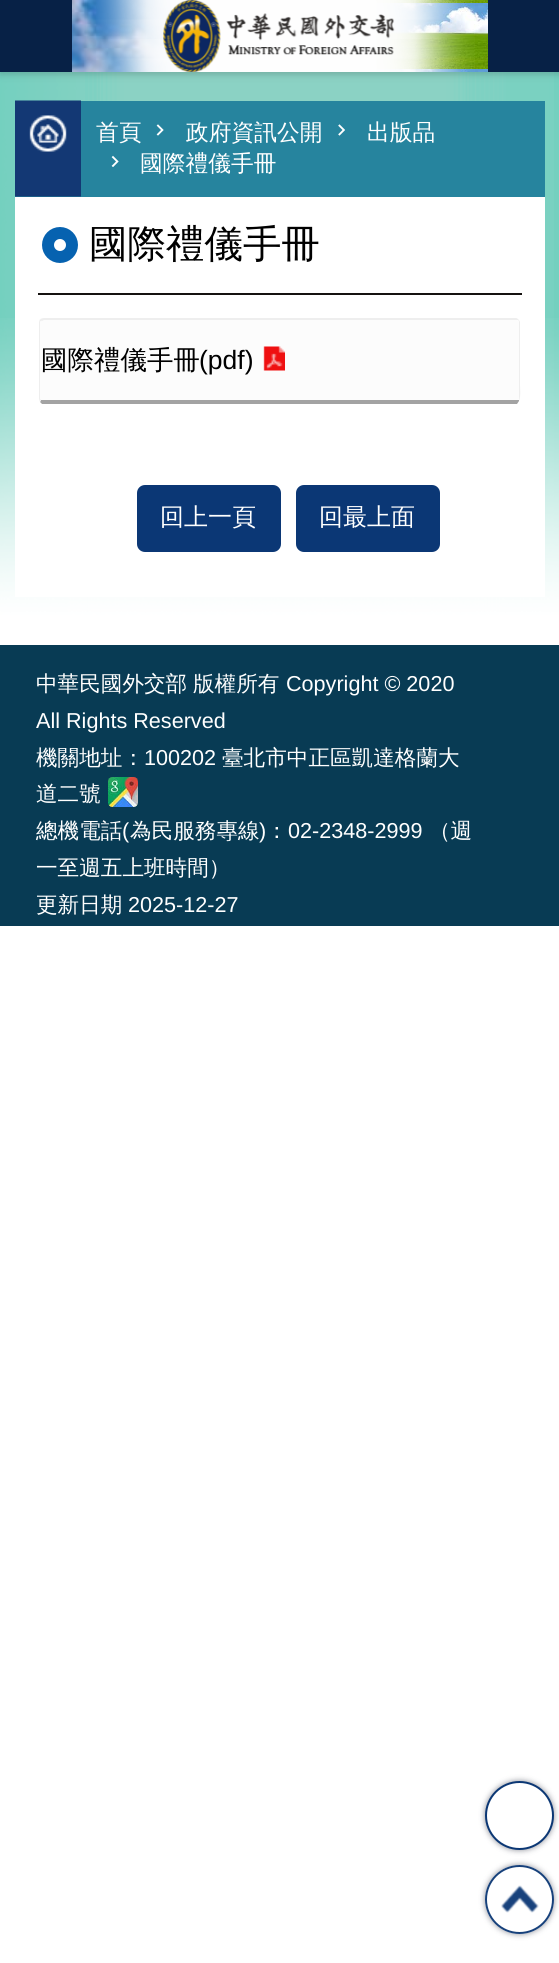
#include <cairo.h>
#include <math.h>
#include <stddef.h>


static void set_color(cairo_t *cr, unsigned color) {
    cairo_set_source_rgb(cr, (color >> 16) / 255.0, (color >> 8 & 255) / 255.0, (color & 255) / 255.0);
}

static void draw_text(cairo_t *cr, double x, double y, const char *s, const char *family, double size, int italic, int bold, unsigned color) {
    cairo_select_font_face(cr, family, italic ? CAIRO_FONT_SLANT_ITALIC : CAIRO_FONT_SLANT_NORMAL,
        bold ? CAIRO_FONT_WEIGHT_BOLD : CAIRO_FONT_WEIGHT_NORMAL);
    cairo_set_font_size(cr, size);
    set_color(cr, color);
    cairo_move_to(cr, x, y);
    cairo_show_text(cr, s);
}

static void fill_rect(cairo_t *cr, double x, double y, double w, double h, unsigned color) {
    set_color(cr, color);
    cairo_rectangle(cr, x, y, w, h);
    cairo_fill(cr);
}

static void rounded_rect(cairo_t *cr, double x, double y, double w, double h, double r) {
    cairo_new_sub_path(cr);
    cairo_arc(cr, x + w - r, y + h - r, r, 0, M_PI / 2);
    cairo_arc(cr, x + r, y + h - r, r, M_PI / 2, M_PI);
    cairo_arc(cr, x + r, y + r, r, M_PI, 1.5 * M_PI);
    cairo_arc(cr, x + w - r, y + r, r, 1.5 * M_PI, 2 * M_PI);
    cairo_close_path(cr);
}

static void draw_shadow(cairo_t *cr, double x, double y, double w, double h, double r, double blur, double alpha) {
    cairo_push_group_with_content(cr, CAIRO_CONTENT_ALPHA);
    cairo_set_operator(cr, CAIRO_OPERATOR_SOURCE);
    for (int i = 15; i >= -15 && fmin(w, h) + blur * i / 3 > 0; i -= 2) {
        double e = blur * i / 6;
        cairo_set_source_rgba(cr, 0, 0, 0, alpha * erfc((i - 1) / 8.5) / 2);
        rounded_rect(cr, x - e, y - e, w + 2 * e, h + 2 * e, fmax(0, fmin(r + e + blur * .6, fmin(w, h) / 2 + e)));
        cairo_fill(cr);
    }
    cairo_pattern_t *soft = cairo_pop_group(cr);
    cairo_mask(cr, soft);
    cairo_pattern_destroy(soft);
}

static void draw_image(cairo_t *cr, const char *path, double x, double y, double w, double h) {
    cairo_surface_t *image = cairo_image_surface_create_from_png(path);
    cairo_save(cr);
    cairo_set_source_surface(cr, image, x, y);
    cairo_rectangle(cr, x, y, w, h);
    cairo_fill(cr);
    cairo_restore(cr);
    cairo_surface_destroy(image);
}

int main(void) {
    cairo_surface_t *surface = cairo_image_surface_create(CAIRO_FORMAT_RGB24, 559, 1963);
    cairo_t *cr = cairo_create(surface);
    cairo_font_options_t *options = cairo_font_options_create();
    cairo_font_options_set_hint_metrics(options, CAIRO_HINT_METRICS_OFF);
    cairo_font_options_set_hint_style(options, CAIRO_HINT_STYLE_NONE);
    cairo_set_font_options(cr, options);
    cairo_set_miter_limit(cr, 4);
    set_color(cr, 0xFFFFFF);
    cairo_paint(cr);
    draw_image(cr, "assets/img1.png", 0, 72, 559, 543);
    draw_image(cr, "assets/img6.png", 85, 72, 469, 543);
    set_color(cr, 0x000000);
    draw_shadow(cr, 0, 2, 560, 72, 0, 4, 0.2);
    fill_rect(cr, 0, 0, 72, 72, 0x072146);
    draw_image(cr, "assets/img2.png", 376, 0, 112, 72);
    draw_image(cr, "assets/img3.png", 72, 0, 112, 72);
    draw_image(cr, "assets/img4.png", 86, 0, 389, 72);
    draw_image(cr, "assets/img5.png", 163, 0, 232, 72);
    fill_rect(cr, 488, 0, 71, 72, 0x072146);
    draw_image(cr, "assets/img7.png", 0, 318, 559, 327);
    fill_rect(cr, 15, 197, 530, 400, 0xFFFFFF);
    fill_rect(cr, 15, 101, 530, 96, 0x26849E);
    draw_image(cr, "assets/img8.png", 15, 100, 66, 97);
    draw_text(cr, 96, 140, "首頁", "WenQuanYi Zen Hei Medium", 22.75, 0, 0, 0xFFFFFF);
    draw_image(cr, "assets/img9.png", 156, 124, 8, 12);
    draw_text(cr, 186, 140, "政府資訊公開", "WenQuanYi Zen Hei Medium", 22.75, 0, 0, 0xFFFFFF);
    draw_image(cr, "assets/img10.png", 338, 124, 7, 12);
    draw_text(cr, 367, 140, "出版品", "WenQuanYi Zen Hei Medium", 22.75, 0, 0, 0xFFFFFF);
    draw_image(cr, "assets/img11.png", 111, 155, 8, 12);
    draw_text(cr, 140, 171, "國際禮儀手冊", "WenQuanYi Zen Hei Medium", 22.75, 0, 0, 0xFFFFFF);
    fill_rect(cr, 38, 293, 484, 2, 0x151210);
    cairo_new_path(cr);
    cairo_arc(cr, 60, 245, 12, 0, 2 * M_PI);
    set_color(cr, 0x0662B0);
    cairo_set_line_width(cr, 12);
    cairo_stroke(cr);
    draw_text(cr, 89, 257, "國際禮儀手冊", "WenQuanYi Zen Hei Medium", 38.5, 0, 0, 0x000000);
    set_color(cr, 0xFCFCFC);
    cairo_new_path(cr);
    cairo_move_to(cr, 44, 320);
    cairo_line_to(cr, 516, 320);
    cairo_curve_to(cr, 518, 320, 519, 321, 519, 322);
    cairo_line_to(cr, 519, 399);
    cairo_curve_to(cr, 519, 400, 518, 400, 516, 400);
    cairo_line_to(cr, 44, 400);
    cairo_curve_to(cr, 42, 400, 40, 400, 40, 399);
    cairo_line_to(cr, 40, 322);
    cairo_curve_to(cr, 40, 321, 42, 320, 44, 320);
    cairo_close_path(cr);
    cairo_fill(cr);
    set_color(cr, 0xEEEEEE);
    cairo_new_path(cr);
    cairo_move_to(cr, 44, 318);
    cairo_curve_to(cr, 42, 318, 41, 319, 40, 319);
    cairo_line_to(cr, 42, 321);
    cairo_line_to(cr, 44, 320);
    cairo_line_to(cr, 518, 320);
    cairo_line_to(cr, 519, 320);
    cairo_curve_to(cr, 518, 319, 517, 318, 516, 318);
    cairo_close_path(cr);
    cairo_fill(cr);
    cairo_new_path(cr);
    cairo_move_to(cr, 519, 320);
    cairo_line_to(cr, 520, 322);
    cairo_line_to(cr, 520, 386);
    cairo_curve_to(cr, 520, 386, 521, 397, 519, 401);
    cairo_line_to(cr, 519, 400);
    cairo_line_to(cr, 519, 399);
    cairo_line_to(cr, 519, 321);
    cairo_line_to(cr, 518, 320);
    cairo_close_path(cr);
    cairo_fill(cr);
    set_color(cr, 0xA3A3A3);
    cairo_new_path(cr);
    cairo_move_to(cr, 42, 404);
    cairo_line_to(cr, 40, 402);
    cairo_line_to(cr, 41, 400);
    cairo_line_to(cr, 519, 400);
    cairo_line_to(cr, 519, 401);
    cairo_line_to(cr, 517, 404);
    cairo_close_path(cr);
    cairo_fill(cr);
    set_color(cr, 0xEEEEEE);
    cairo_new_path(cr);
    cairo_move_to(cr, 39, 322);
    cairo_line_to(cr, 39, 399);
    cairo_line_to(cr, 40, 402);
    cairo_line_to(cr, 41, 400);
    cairo_line_to(cr, 40, 399);
    cairo_line_to(cr, 40, 322);
    cairo_curve_to(cr, 40, 321, 41, 321, 42, 321);
    cairo_line_to(cr, 40, 319);
    cairo_close_path(cr);
    cairo_fill(cr);
    draw_text(cr, 41, 369, "國際禮儀手冊", "WenQuanYi Zen Hei Medium", 26.5, 0, 0, 0x000000);
    draw_text(cr, 199, 369, "(pdf)", "Liberation Sans", 26.5, 0, 0, 0x000000);
    draw_image(cr, "assets/img12.png", 263, 346, 22, 25);
    set_color(cr, 0x0B3775);
    rounded_rect(cr, 137, 485, 144, 67, 8);
    cairo_fill(cr);
    draw_text(cr, 160, 525, "回上一頁", "WenQuanYi Zen Hei Medium", 24, 0, 0, 0xFFFFFF);
    set_color(cr, 0x0B3775);
    rounded_rect(cr, 296, 485, 144, 67, 8);
    cairo_fill(cr);
    draw_text(cr, 319, 525, "回最上面", "WenQuanYi Zen Hei Medium", 24, 0, 0, 0xFFFFFF);
    fill_rect(cr, 0, 645, 559, 281, 0x083B54);
    draw_text(cr, 36, 691, "中華民國外交部", "WenQuanYi Zen Hei Medium", 21.6, 0, 0, 0xFFFFFF);
    draw_text(cr, 193, 691, "版權所有", "WenQuanYi Zen Hei Medium", 21.6, 0, 0, 0xFFFFFF);
    draw_text(cr, 286, 691, "Copyright © 2020", "Liberation Sans", 21.6, 0, 0, 0xFFFFFF);
    draw_text(cr, 36, 728, "All Rights Reserved", "Liberation Sans", 21.6, 0, 0, 0xFFFFFF);
    draw_text(cr, 36, 765, "機關地址：", "WenQuanYi Zen Hei Medium", 21.6, 0, 0, 0xFFFFFF);
    draw_text(cr, 144, 765, "100202", "Liberation Sans", 21.6, 0, 0, 0xFFFFFF);
    draw_text(cr, 222, 765, "臺北市中正區凱達格蘭大", "WenQuanYi Zen Hei Medium", 21.6, 0, 0, 0xFFFFFF);
    draw_text(cr, 36, 801, "道二號", "WenQuanYi Zen Hei Medium", 21.6, 0, 0, 0xFFFFFF);
    draw_image(cr, "assets/img13.png", 108, 777, 30, 30);
    draw_text(cr, 36, 838, "總機電話", "WenQuanYi Zen Hei Medium", 21.6, 0, 0, 0xFFFFFF);
    draw_text(cr, 122, 838, "(", "Liberation Sans", 21.6, 0, 0, 0xFFFFFF);
    draw_text(cr, 130, 838, "為民服務專線", "WenQuanYi Zen Hei Medium", 21.6, 0, 0, 0xFFFFFF);
    draw_text(cr, 259, 838, ")", "Liberation Sans", 21.6, 0, 0, 0xFFFFFF);
    draw_text(cr, 266, 838, "：", "WenQuanYi Zen Hei Medium", 21.6, 0, 0, 0xFFFFFF);
    draw_text(cr, 288, 838, "02-2348-2999", "Liberation Sans", 21.6, 0, 0, 0xFFFFFF);
    draw_text(cr, 429, 838, "（週", "WenQuanYi Zen Hei Medium", 21.6, 0, 0, 0xFFFFFF);
    draw_text(cr, 36, 875, "一至週五上班時間）", "WenQuanYi Zen Hei Medium", 21.6, 0, 0, 0xFFFFFF);
    draw_text(cr, 36, 912, "更新日期", "WenQuanYi Zen Hei Medium", 21.6, 0, 0, 0xFFFFFF);
    draw_text(cr, 128, 912, "2025-12-27", "Liberation Sans", 21.6, 0, 0, 0xFFFFFF);
    set_color(cr, 0x161B2D);
    draw_shadow(cr, 485, 1781, 69, 69, 34.5, 3, 0.5);
    set_color(cr, 0xFFFFFF);
    cairo_arc(cr, 519.5, 1815.5, 33.5, 0, 2 * M_PI);
    cairo_fill_preserve(cr);
    set_color(cr, 0x0B3774);
    cairo_set_line_width(cr, 2);
    cairo_stroke(cr);
    set_color(cr, 0x222637);
    draw_shadow(cr, 485, 1865, 69, 69, 34.5, 3, 0.5);
    set_color(cr, 0xFFFFFF);
    cairo_arc(cr, 519.5, 1899.5, 34.5, 0, 2 * M_PI);
    cairo_fill(cr);
    draw_image(cr, "assets/img14.png", 501, 1885, 38, 28);
    cairo_arc(cr, 519.5, 1899.5, 33.5, 0, 2 * M_PI);
    set_color(cr, 0x17417B);
    cairo_stroke(cr);
    cairo_surface_write_to_png(surface, "output.png");
    cairo_font_options_destroy(options);
    cairo_destroy(cr);
    cairo_surface_destroy(surface);
    return 0;
}
